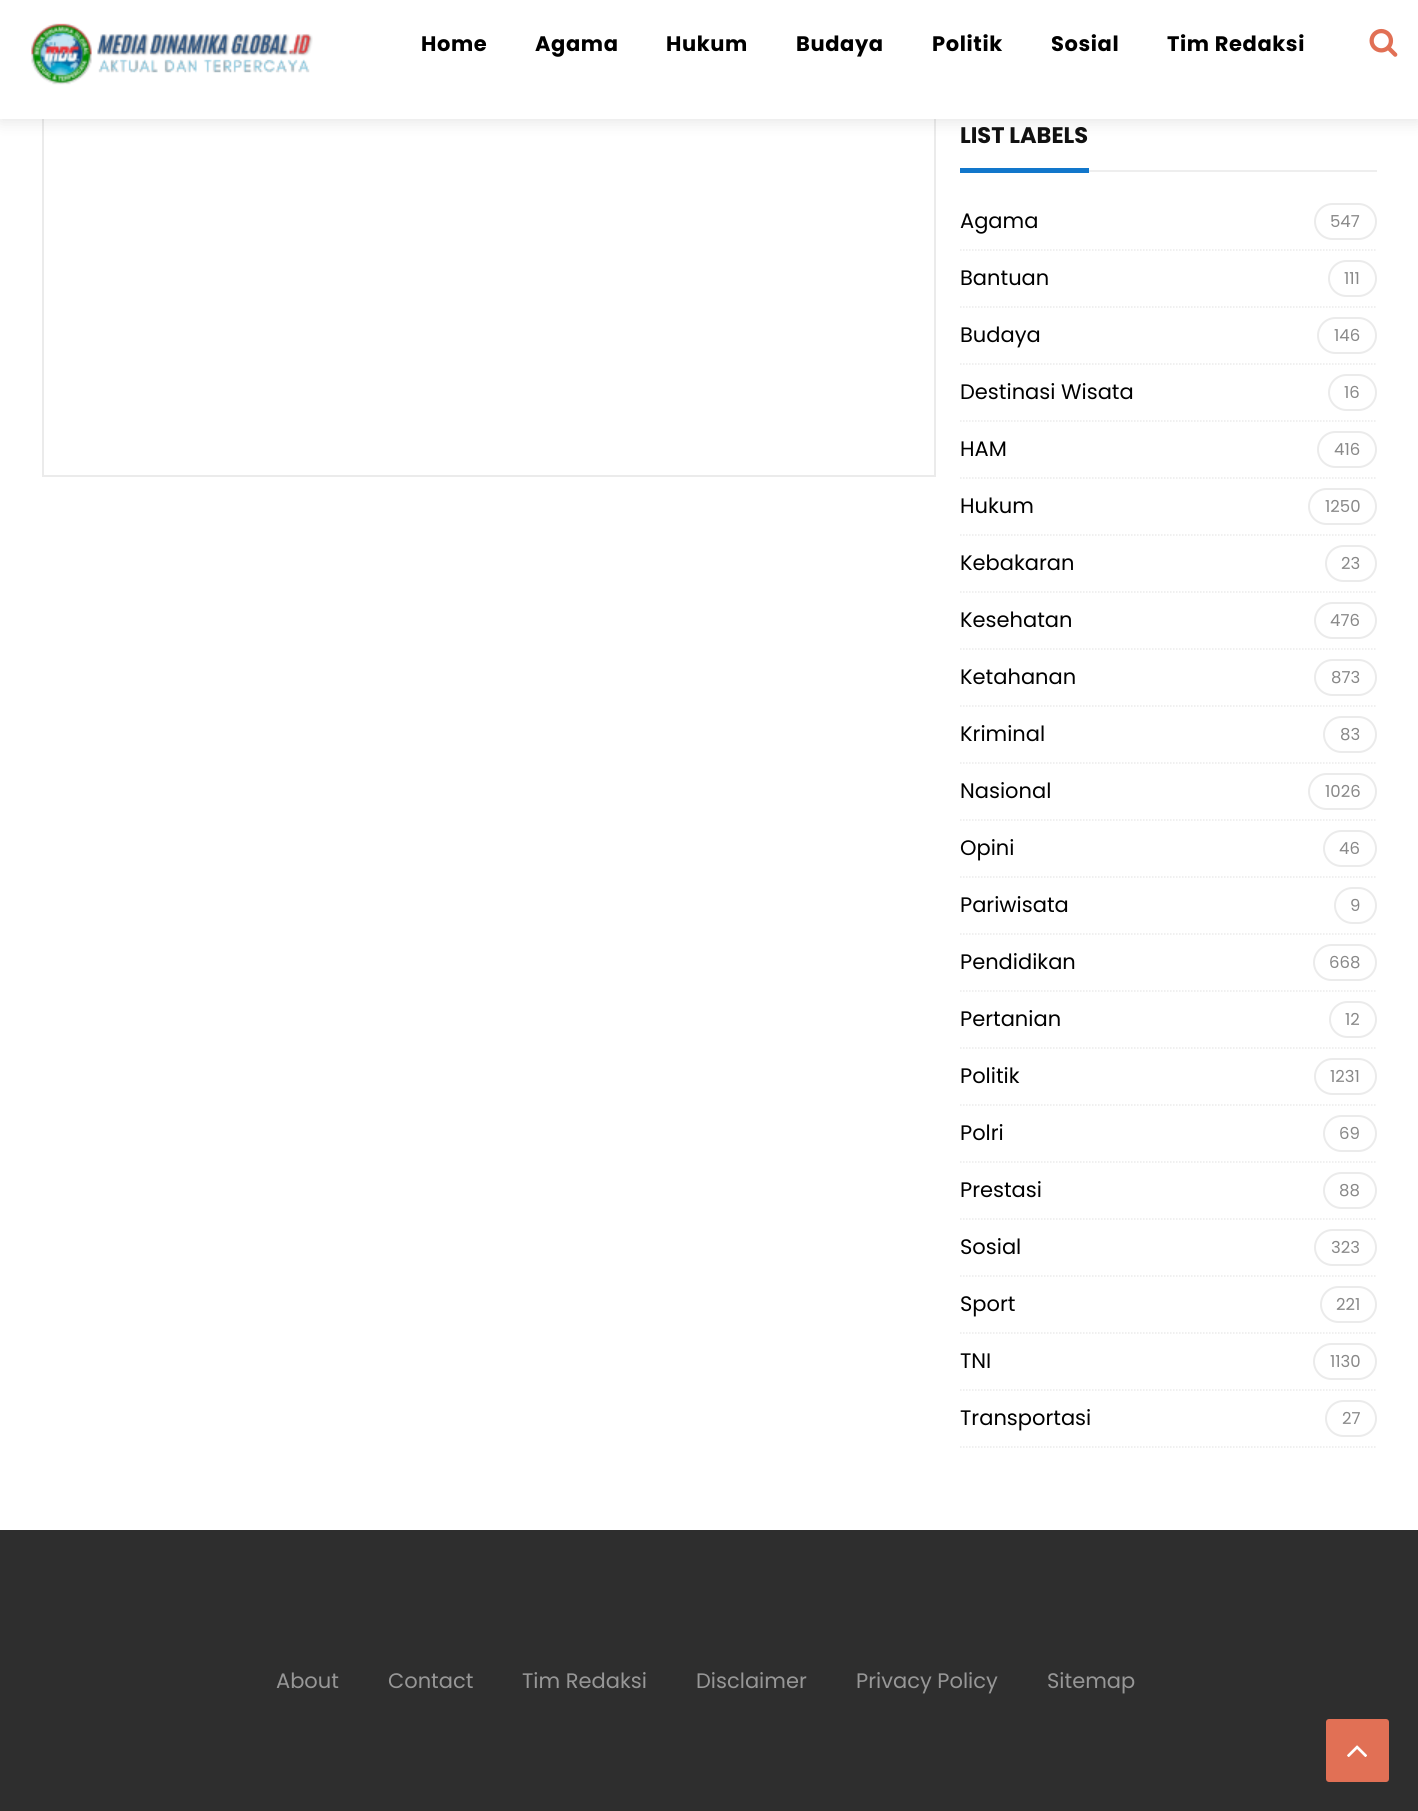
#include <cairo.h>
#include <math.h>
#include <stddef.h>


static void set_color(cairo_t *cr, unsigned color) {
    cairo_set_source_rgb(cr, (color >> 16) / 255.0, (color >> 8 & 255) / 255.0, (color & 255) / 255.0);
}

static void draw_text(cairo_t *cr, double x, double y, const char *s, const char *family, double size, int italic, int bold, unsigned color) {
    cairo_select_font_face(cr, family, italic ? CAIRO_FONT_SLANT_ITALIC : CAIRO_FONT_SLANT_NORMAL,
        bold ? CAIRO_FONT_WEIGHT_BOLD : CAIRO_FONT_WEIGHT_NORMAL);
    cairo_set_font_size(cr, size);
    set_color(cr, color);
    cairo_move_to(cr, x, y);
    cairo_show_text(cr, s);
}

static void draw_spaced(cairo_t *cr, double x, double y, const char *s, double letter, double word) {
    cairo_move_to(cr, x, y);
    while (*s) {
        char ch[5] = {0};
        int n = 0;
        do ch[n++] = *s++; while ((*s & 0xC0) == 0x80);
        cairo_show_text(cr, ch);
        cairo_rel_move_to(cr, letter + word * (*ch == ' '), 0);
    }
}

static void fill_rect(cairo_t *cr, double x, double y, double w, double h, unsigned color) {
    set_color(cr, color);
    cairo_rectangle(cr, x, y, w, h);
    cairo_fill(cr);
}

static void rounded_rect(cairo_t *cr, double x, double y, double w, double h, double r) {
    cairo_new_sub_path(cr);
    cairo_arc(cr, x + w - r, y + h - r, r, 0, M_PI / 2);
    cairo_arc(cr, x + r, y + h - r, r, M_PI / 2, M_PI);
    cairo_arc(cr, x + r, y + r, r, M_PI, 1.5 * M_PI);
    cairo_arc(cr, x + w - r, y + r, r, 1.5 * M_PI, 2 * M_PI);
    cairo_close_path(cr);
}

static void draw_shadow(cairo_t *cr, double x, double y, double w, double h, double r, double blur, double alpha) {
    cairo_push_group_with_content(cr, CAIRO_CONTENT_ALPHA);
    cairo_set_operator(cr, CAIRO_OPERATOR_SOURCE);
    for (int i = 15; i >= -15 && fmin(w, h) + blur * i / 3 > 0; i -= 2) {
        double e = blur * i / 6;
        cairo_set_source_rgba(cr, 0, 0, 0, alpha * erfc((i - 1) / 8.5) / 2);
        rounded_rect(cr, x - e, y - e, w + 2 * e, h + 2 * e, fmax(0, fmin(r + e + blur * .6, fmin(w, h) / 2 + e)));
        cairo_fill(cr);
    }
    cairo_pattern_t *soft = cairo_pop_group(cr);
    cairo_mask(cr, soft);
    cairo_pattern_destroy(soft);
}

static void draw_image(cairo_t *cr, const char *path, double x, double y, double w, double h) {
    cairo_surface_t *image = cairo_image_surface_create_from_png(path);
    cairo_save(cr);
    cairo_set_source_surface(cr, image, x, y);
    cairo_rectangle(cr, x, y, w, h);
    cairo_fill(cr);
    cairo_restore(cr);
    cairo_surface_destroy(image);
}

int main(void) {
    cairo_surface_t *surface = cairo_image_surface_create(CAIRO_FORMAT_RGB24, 1418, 1811);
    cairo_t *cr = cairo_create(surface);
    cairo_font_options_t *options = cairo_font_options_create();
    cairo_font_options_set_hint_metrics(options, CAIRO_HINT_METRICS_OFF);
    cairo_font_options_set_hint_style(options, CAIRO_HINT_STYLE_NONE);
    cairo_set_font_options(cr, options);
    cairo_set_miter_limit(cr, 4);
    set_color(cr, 0xFFFFFF);
    cairo_paint(cr);
    cairo_rectangle(cr, 43, -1, 892, 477);
    set_color(cr, 0xEBEBEB);
    cairo_stroke(cr);
    set_color(cr, 0x000000);
    draw_shadow(cr, 0, 3, 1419, 119, 0, 7.5, 0.1);
    fill_rect(cr, 0, 0, 1418, 119, 0xFFFFFF);
    draw_image(cr, "assets/img1.png", 31, 23, 282, 62);
    cairo_select_font_face(cr, "Poppins", CAIRO_FONT_SLANT_NORMAL, CAIRO_FONT_WEIGHT_BOLD);
    cairo_set_font_size(cr, 21);
    set_color(cr, 0x000000);
    draw_spaced(cr, 421, 51, "Home", 0.6, 0);
    draw_spaced(cr, 535, 51, "Agama", 0.6, 0);
    draw_spaced(cr, 666, 51, "Hukum", 0.6, 0);
    draw_spaced(cr, 796, 51, "Budaya", 0.6, 0);
    draw_spaced(cr, 932, 51, "Politik", 0.6, 0);
    draw_spaced(cr, 1051, 51, "Sosial", 0.6, 0);
    draw_spaced(cr, 1167, 51, "Tim Redaksi", 0.6, 0);
    draw_image(cr, "assets/img2.png", 1369, 28, 29, 29);
    draw_text(cr, 960, 143, "LIST LABELS", "Poppins", 22.5, 0, 1, 0x111111);
    fill_rect(cr, 960, 168, 129, 5, 0x1277CB);
    fill_rect(cr, 1089, 170, 288, 2, 0xEEEEEE);
    cairo_new_path(cr);
    cairo_move_to(cr, 960, 250);
    cairo_line_to(cr, 1377, 250);
    set_color(cr, 0xEBEBEB);
    cairo_set_line_width(cr, 1.5);
    cairo_set_dash(cr, (double[]){1.5, 1.5}, 2, 0);
    cairo_stroke(cr);
    draw_text(cr, 960, 228, "Agama", "Poppins", 21, 0, 0, 0x000000);
    rounded_rect(cr, 1315, 204, 61, 35, 17.5);
    set_color(cr, 0xEBEBEB);
    cairo_set_line_width(cr, 2);
    cairo_set_dash(cr, NULL, 0, 0);
    cairo_stroke(cr);
    draw_text(cr, 1330, 227, "547", "Poppins", 16.5, 0, 0, 0x888888);
    cairo_new_path(cr);
    cairo_move_to(cr, 960, 307);
    cairo_line_to(cr, 1377, 307);
    set_color(cr, 0xEBEBEB);
    cairo_set_line_width(cr, 1.5);
    cairo_set_dash(cr, (double[]){1.5, 1.5}, 2, 0);
    cairo_stroke(cr);
    draw_text(cr, 960, 285, "Bantuan", "Poppins", 21, 0, 0, 0x000000);
    rounded_rect(cr, 1329, 261, 47, 35, 17.5);
    set_color(cr, 0xEBEBEB);
    cairo_set_line_width(cr, 2);
    cairo_set_dash(cr, NULL, 0, 0);
    cairo_stroke(cr);
    draw_text(cr, 1344, 284, "111", "Poppins", 16.5, 0, 0, 0x888888);
    cairo_new_path(cr);
    cairo_move_to(cr, 960, 364);
    cairo_line_to(cr, 1377, 364);
    set_color(cr, 0xEBEBEB);
    cairo_set_line_width(cr, 1.5);
    cairo_set_dash(cr, (double[]){1.5, 1.5}, 2, 0);
    cairo_stroke(cr);
    draw_text(cr, 960, 342, "Budaya", "Poppins", 21, 0, 0, 0x000000);
    rounded_rect(cr, 1318, 318, 58, 35, 17.5);
    set_color(cr, 0xEBEBEB);
    cairo_set_line_width(cr, 2);
    cairo_set_dash(cr, NULL, 0, 0);
    cairo_stroke(cr);
    draw_text(cr, 1334, 341, "146", "Poppins", 16.5, 0, 0, 0x888888);
    cairo_new_path(cr);
    cairo_move_to(cr, 960, 421);
    cairo_line_to(cr, 1377, 421);
    set_color(cr, 0xEBEBEB);
    cairo_set_line_width(cr, 1.5);
    cairo_set_dash(cr, (double[]){1.5, 1.5}, 2, 0);
    cairo_stroke(cr);
    draw_text(cr, 960, 399, "Destinasi Wisata", "Poppins", 21, 0, 0, 0x000000);
    rounded_rect(cr, 1329, 375, 47, 35, 17.5);
    set_color(cr, 0xEBEBEB);
    cairo_set_line_width(cr, 2);
    cairo_set_dash(cr, NULL, 0, 0);
    cairo_stroke(cr);
    draw_text(cr, 1344, 398, "16", "Poppins", 16.5, 0, 0, 0x888888);
    cairo_new_path(cr);
    cairo_move_to(cr, 960, 478);
    cairo_line_to(cr, 1377, 478);
    set_color(cr, 0xEBEBEB);
    cairo_set_line_width(cr, 1.5);
    cairo_set_dash(cr, (double[]){1.5, 1.5}, 2, 0);
    cairo_stroke(cr);
    draw_text(cr, 960, 456, "HAM", "Poppins", 21, 0, 0, 0x000000);
    rounded_rect(cr, 1318, 432, 58, 35, 17.5);
    set_color(cr, 0xEBEBEB);
    cairo_set_line_width(cr, 2);
    cairo_set_dash(cr, NULL, 0, 0);
    cairo_stroke(cr);
    draw_text(cr, 1334, 455, "416", "Poppins", 16.5, 0, 0, 0x888888);
    cairo_new_path(cr);
    cairo_move_to(cr, 960, 535);
    cairo_line_to(cr, 1377, 535);
    set_color(cr, 0xEBEBEB);
    cairo_set_line_width(cr, 1.5);
    cairo_set_dash(cr, (double[]){1.5, 1.5}, 2, 0);
    cairo_stroke(cr);
    draw_text(cr, 960, 513, "Hukum", "Poppins", 21, 0, 0, 0x000000);
    rounded_rect(cr, 1309, 489, 67, 35, 17.5);
    set_color(cr, 0xEBEBEB);
    cairo_set_line_width(cr, 2);
    cairo_set_dash(cr, NULL, 0, 0);
    cairo_stroke(cr);
    draw_text(cr, 1325, 512, "1250", "Poppins", 16.5, 0, 0, 0x888888);
    cairo_new_path(cr);
    cairo_move_to(cr, 960, 592);
    cairo_line_to(cr, 1377, 592);
    set_color(cr, 0xEBEBEB);
    cairo_set_line_width(cr, 1.5);
    cairo_set_dash(cr, (double[]){1.5, 1.5}, 2, 0);
    cairo_stroke(cr);
    draw_text(cr, 960, 570, "Kebakaran", "Poppins", 21, 0, 0, 0x000000);
    rounded_rect(cr, 1326, 546, 50, 35, 17.5);
    set_color(cr, 0xEBEBEB);
    cairo_set_line_width(cr, 2);
    cairo_set_dash(cr, NULL, 0, 0);
    cairo_stroke(cr);
    draw_text(cr, 1341, 569, "23", "Poppins", 16.5, 0, 0, 0x888888);
    cairo_new_path(cr);
    cairo_move_to(cr, 960, 649);
    cairo_line_to(cr, 1377, 649);
    set_color(cr, 0xEBEBEB);
    cairo_set_line_width(cr, 1.5);
    cairo_set_dash(cr, (double[]){1.5, 1.5}, 2, 0);
    cairo_stroke(cr);
    draw_text(cr, 960, 627, "Kesehatan", "Poppins", 21, 0, 0, 0x000000);
    rounded_rect(cr, 1315, 603, 61, 35, 17.5);
    set_color(cr, 0xEBEBEB);
    cairo_set_line_width(cr, 2);
    cairo_set_dash(cr, NULL, 0, 0);
    cairo_stroke(cr);
    draw_text(cr, 1330, 626, "476", "Poppins", 16.5, 0, 0, 0x888888);
    cairo_new_path(cr);
    cairo_move_to(cr, 960, 706);
    cairo_line_to(cr, 1377, 706);
    set_color(cr, 0xEBEBEB);
    cairo_set_line_width(cr, 1.5);
    cairo_set_dash(cr, (double[]){1.5, 1.5}, 2, 0);
    cairo_stroke(cr);
    draw_text(cr, 960, 684, "Ketahanan", "Poppins", 21, 0, 0, 0x000000);
    rounded_rect(cr, 1315, 660, 61, 35, 17.5);
    set_color(cr, 0xEBEBEB);
    cairo_set_line_width(cr, 2);
    cairo_set_dash(cr, NULL, 0, 0);
    cairo_stroke(cr);
    draw_text(cr, 1331, 683, "873", "Poppins", 16.5, 0, 0, 0x888888);
    cairo_new_path(cr);
    cairo_move_to(cr, 960, 763);
    cairo_line_to(cr, 1377, 763);
    set_color(cr, 0xEBEBEB);
    cairo_set_line_width(cr, 1.5);
    cairo_set_dash(cr, (double[]){1.5, 1.5}, 2, 0);
    cairo_stroke(cr);
    draw_text(cr, 960, 741, "Kriminal", "Poppins", 21, 0, 0, 0x000000);
    rounded_rect(cr, 1324, 717, 52, 35, 17.5);
    set_color(cr, 0xEBEBEB);
    cairo_set_line_width(cr, 2);
    cairo_set_dash(cr, NULL, 0, 0);
    cairo_stroke(cr);
    draw_text(cr, 1340, 740, "83", "Poppins", 16.5, 0, 0, 0x888888);
    cairo_new_path(cr);
    cairo_move_to(cr, 960, 820);
    cairo_line_to(cr, 1377, 820);
    set_color(cr, 0xEBEBEB);
    cairo_set_line_width(cr, 1.5);
    cairo_set_dash(cr, (double[]){1.5, 1.5}, 2, 0);
    cairo_stroke(cr);
    draw_text(cr, 960, 798, "Nasional", "Poppins", 21, 0, 0, 0x000000);
    rounded_rect(cr, 1309, 774, 67, 35, 17.5);
    set_color(cr, 0xEBEBEB);
    cairo_set_line_width(cr, 2);
    cairo_set_dash(cr, NULL, 0, 0);
    cairo_stroke(cr);
    draw_text(cr, 1325, 797, "1026", "Poppins", 16.5, 0, 0, 0x888888);
    cairo_new_path(cr);
    cairo_move_to(cr, 960, 877);
    cairo_line_to(cr, 1377, 877);
    set_color(cr, 0xEBEBEB);
    cairo_set_line_width(cr, 1.5);
    cairo_set_dash(cr, (double[]){1.5, 1.5}, 2, 0);
    cairo_stroke(cr);
    draw_text(cr, 960, 855, "Opini", "Poppins", 21, 0, 0, 0x000000);
    rounded_rect(cr, 1324, 831, 52, 35, 17.5);
    set_color(cr, 0xEBEBEB);
    cairo_set_line_width(cr, 2);
    cairo_set_dash(cr, NULL, 0, 0);
    cairo_stroke(cr);
    draw_text(cr, 1339, 854, "46", "Poppins", 16.5, 0, 0, 0x888888);
    cairo_new_path(cr);
    cairo_move_to(cr, 960, 934);
    cairo_line_to(cr, 1377, 934);
    set_color(cr, 0xEBEBEB);
    cairo_set_line_width(cr, 1.5);
    cairo_set_dash(cr, (double[]){1.5, 1.5}, 2, 0);
    cairo_stroke(cr);
    draw_text(cr, 960, 912, "Pariwisata", "Poppins", 21, 0, 0, 0x000000);
    rounded_rect(cr, 1335, 888, 41, 35, 17.5);
    set_color(cr, 0xEBEBEB);
    cairo_set_line_width(cr, 2);
    cairo_set_dash(cr, NULL, 0, 0);
    cairo_stroke(cr);
    draw_text(cr, 1350, 911, "9", "Poppins", 16.5, 0, 0, 0x888888);
    cairo_new_path(cr);
    cairo_move_to(cr, 960, 991);
    cairo_line_to(cr, 1377, 991);
    set_color(cr, 0xEBEBEB);
    cairo_set_line_width(cr, 1.5);
    cairo_set_dash(cr, (double[]){1.5, 1.5}, 2, 0);
    cairo_stroke(cr);
    draw_text(cr, 960, 969, "Pendidikan", "Poppins", 21, 0, 0, 0x000000);
    rounded_rect(cr, 1314, 945, 62, 35, 17.5);
    set_color(cr, 0xEBEBEB);
    cairo_set_line_width(cr, 2);
    cairo_set_dash(cr, NULL, 0, 0);
    cairo_stroke(cr);
    draw_text(cr, 1329, 968, "668", "Poppins", 16.5, 0, 0, 0x888888);
    cairo_new_path(cr);
    cairo_move_to(cr, 960, 1048);
    cairo_line_to(cr, 1377, 1048);
    set_color(cr, 0xEBEBEB);
    cairo_set_line_width(cr, 1.5);
    cairo_set_dash(cr, (double[]){1.5, 1.5}, 2, 0);
    cairo_stroke(cr);
    draw_text(cr, 960, 1026, "Pertanian", "Poppins", 21, 0, 0, 0x000000);
    rounded_rect(cr, 1330, 1002, 46, 35, 17.5);
    set_color(cr, 0xEBEBEB);
    cairo_set_line_width(cr, 2);
    cairo_set_dash(cr, NULL, 0, 0);
    cairo_stroke(cr);
    draw_text(cr, 1345, 1025, "12", "Poppins", 16.5, 0, 0, 0x888888);
    cairo_new_path(cr);
    cairo_move_to(cr, 960, 1105);
    cairo_line_to(cr, 1377, 1105);
    set_color(cr, 0xEBEBEB);
    cairo_set_line_width(cr, 1.5);
    cairo_set_dash(cr, (double[]){1.5, 1.5}, 2, 0);
    cairo_stroke(cr);
    draw_text(cr, 960, 1083, "Politik", "Poppins", 21, 0, 0, 0x000000);
    rounded_rect(cr, 1315, 1059, 61, 35, 17.5);
    set_color(cr, 0xEBEBEB);
    cairo_set_line_width(cr, 2);
    cairo_set_dash(cr, NULL, 0, 0);
    cairo_stroke(cr);
    draw_text(cr, 1330, 1082, "1231", "Poppins", 16.5, 0, 0, 0x888888);
    cairo_new_path(cr);
    cairo_move_to(cr, 960, 1162);
    cairo_line_to(cr, 1377, 1162);
    set_color(cr, 0xEBEBEB);
    cairo_set_line_width(cr, 1.5);
    cairo_set_dash(cr, (double[]){1.5, 1.5}, 2, 0);
    cairo_stroke(cr);
    draw_text(cr, 960, 1140, "Polri", "Poppins", 21, 0, 0, 0x000000);
    rounded_rect(cr, 1324, 1116, 52, 35, 17.5);
    set_color(cr, 0xEBEBEB);
    cairo_set_line_width(cr, 2);
    cairo_set_dash(cr, NULL, 0, 0);
    cairo_stroke(cr);
    draw_text(cr, 1339, 1139, "69", "Poppins", 16.5, 0, 0, 0x888888);
    cairo_new_path(cr);
    cairo_move_to(cr, 960, 1219);
    cairo_line_to(cr, 1377, 1219);
    set_color(cr, 0xEBEBEB);
    cairo_set_line_width(cr, 1.5);
    cairo_set_dash(cr, (double[]){1.5, 1.5}, 2, 0);
    cairo_stroke(cr);
    draw_text(cr, 960, 1197, "Prestasi", "Poppins", 21, 0, 0, 0x000000);
    rounded_rect(cr, 1324, 1173, 52, 35, 17.5);
    set_color(cr, 0xEBEBEB);
    cairo_set_line_width(cr, 2);
    cairo_set_dash(cr, NULL, 0, 0);
    cairo_stroke(cr);
    draw_text(cr, 1339, 1196, "88", "Poppins", 16.5, 0, 0, 0x888888);
    cairo_new_path(cr);
    cairo_move_to(cr, 960, 1276);
    cairo_line_to(cr, 1377, 1276);
    set_color(cr, 0xEBEBEB);
    cairo_set_line_width(cr, 1.5);
    cairo_set_dash(cr, (double[]){1.5, 1.5}, 2, 0);
    cairo_stroke(cr);
    draw_text(cr, 960, 1254, "Sosial", "Poppins", 21, 0, 0, 0x000000);
    rounded_rect(cr, 1315, 1230, 61, 35, 17.5);
    set_color(cr, 0xEBEBEB);
    cairo_set_line_width(cr, 2);
    cairo_set_dash(cr, NULL, 0, 0);
    cairo_stroke(cr);
    draw_text(cr, 1331, 1253, "323", "Poppins", 16.5, 0, 0, 0x888888);
    cairo_new_path(cr);
    cairo_move_to(cr, 960, 1333);
    cairo_line_to(cr, 1377, 1333);
    set_color(cr, 0xEBEBEB);
    cairo_set_line_width(cr, 1.5);
    cairo_set_dash(cr, (double[]){1.5, 1.5}, 2, 0);
    cairo_stroke(cr);
    draw_text(cr, 960, 1311, "Sport", "Poppins", 21, 0, 0, 0x000000);
    rounded_rect(cr, 1321, 1287, 55, 35, 17.5);
    set_color(cr, 0xEBEBEB);
    cairo_set_line_width(cr, 2);
    cairo_set_dash(cr, NULL, 0, 0);
    cairo_stroke(cr);
    draw_text(cr, 1336, 1310, "221", "Poppins", 16.5, 0, 0, 0x888888);
    cairo_new_path(cr);
    cairo_move_to(cr, 960, 1390);
    cairo_line_to(cr, 1377, 1390);
    set_color(cr, 0xEBEBEB);
    cairo_set_line_width(cr, 1.5);
    cairo_set_dash(cr, (double[]){1.5, 1.5}, 2, 0);
    cairo_stroke(cr);
    draw_text(cr, 960, 1368, "TNI", "Poppins", 21, 0, 0, 0x000000);
    rounded_rect(cr, 1314, 1344, 62, 35, 17.5);
    set_color(cr, 0xEBEBEB);
    cairo_set_line_width(cr, 2);
    cairo_set_dash(cr, NULL, 0, 0);
    cairo_stroke(cr);
    draw_text(cr, 1330, 1367, "1130", "Poppins", 16.5, 0, 0, 0x888888);
    cairo_new_path(cr);
    cairo_move_to(cr, 960, 1447);
    cairo_line_to(cr, 1377, 1447);
    set_color(cr, 0xEBEBEB);
    cairo_set_line_width(cr, 1.5);
    cairo_set_dash(cr, (double[]){1.5, 1.5}, 2, 0);
    cairo_stroke(cr);
    draw_text(cr, 960, 1425, "Transportasi", "Poppins", 21, 0, 0, 0x000000);
    rounded_rect(cr, 1326, 1401, 50, 35, 17.5);
    set_color(cr, 0xEBEBEB);
    cairo_set_line_width(cr, 2);
    cairo_set_dash(cr, NULL, 0, 0);
    cairo_stroke(cr);
    draw_text(cr, 1342, 1424, "27", "Poppins", 16.5, 0, 0, 0x888888);
    fill_rect(cr, 0, 1530, 1418, 281, 0x2E2E2E);
    draw_text(cr, 276, 1688, "About", "Poppins", 21, 0, 0, 0x979797);
    draw_text(cr, 388, 1688, "Contact", "Poppins", 21, 0, 0, 0x979797);
    draw_text(cr, 522, 1688, "Tim Redaksi", "Poppins", 21, 0, 0, 0x979797);
    draw_text(cr, 696, 1688, "Disclaimer", "Poppins", 21, 0, 0, 0x979797);
    draw_text(cr, 856, 1688, "Privacy Policy", "Poppins", 21, 0, 0, 0x979797);
    draw_text(cr, 1047, 1688, "Sitemap", "Poppins", 21, 0, 0, 0x979797);
    set_color(cr, 0xE17055);
    rounded_rect(cr, 1326, 1719, 63, 63, 3);
    cairo_fill(cr);
    draw_image(cr, "assets/img3.png", 1347, 1745, 20, 12);
    cairo_surface_write_to_png(surface, "output.png");
    cairo_font_options_destroy(options);
    cairo_destroy(cr);
    cairo_surface_destroy(surface);
    return 0;
}
